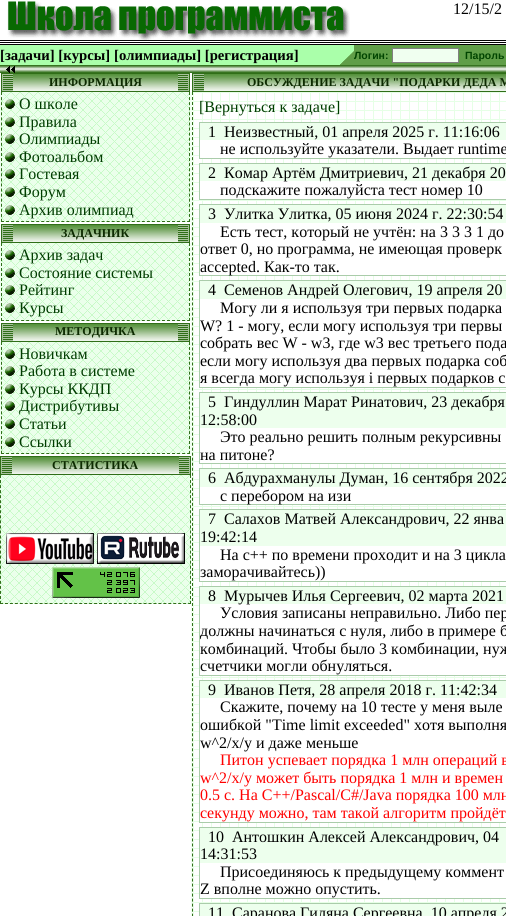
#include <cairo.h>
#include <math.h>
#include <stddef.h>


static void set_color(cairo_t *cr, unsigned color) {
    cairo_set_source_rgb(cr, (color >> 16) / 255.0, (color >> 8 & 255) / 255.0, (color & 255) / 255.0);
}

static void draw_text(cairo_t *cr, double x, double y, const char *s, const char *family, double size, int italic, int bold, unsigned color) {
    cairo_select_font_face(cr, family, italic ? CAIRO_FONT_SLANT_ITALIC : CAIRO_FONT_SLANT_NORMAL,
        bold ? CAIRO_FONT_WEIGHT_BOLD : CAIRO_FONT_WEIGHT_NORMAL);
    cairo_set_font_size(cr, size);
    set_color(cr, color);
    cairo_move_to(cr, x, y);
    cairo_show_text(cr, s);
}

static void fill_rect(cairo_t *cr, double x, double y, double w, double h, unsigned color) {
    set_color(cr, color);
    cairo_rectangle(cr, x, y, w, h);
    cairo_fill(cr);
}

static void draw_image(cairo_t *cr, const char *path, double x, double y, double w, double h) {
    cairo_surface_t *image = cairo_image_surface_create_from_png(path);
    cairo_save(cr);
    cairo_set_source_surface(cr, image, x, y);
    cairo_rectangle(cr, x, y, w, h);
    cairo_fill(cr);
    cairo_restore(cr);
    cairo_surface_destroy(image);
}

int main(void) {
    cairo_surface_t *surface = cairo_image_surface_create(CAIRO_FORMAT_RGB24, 506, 916);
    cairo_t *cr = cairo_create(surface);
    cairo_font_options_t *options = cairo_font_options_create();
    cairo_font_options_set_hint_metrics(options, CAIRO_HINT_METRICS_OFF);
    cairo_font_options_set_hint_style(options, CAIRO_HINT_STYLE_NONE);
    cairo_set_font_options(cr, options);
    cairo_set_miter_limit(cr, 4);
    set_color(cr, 0xFFFFFF);
    cairo_paint(cr);
    draw_image(cr, "assets/img1.png", 7, 1, 343, 39);
    draw_text(cr, 453, 14, "12/15/2", "Liberation Serif", 16, 0, 0, 0x000000);
    draw_image(cr, "assets/img2.png", 0, 40, 506, 5);
    fill_rect(cr, 0, 45, 339, 20, 0xAAFFAA);
    draw_text(cr, 0, 60, "[задачи] [курсы]", "Liberation Serif", 14.7, 0, 1, 0x000000);
    draw_text(cr, 114, 60, "[олимпиады] [регистрация]", "Liberation Serif", 14.7, 0, 1, 0x000000);
    fill_rect(cr, 340, 51, 14, 14, 0x609E48);
    draw_image(cr, "assets/img3.png", 339, 45, 15, 20);
    fill_rect(cr, 354, 45, 152, 20, 0x609E48);
    draw_text(cr, 354, 59, "Логин:", "Liberation Sans", 10.5, 0, 1, 0x004400);
    set_color(cr, 0xF0FFF0);
    cairo_rectangle(cr, 392.5, 48.5, 66, 14);
    cairo_fill_preserve(cr);
    set_color(cr, 0x808080);
    cairo_set_line_width(cr, 1);
    cairo_stroke(cr);
    draw_text(cr, 465, 59, "Пароль", "Liberation Sans", 10.5, 0, 1, 0x004400);
    draw_image(cr, "assets/img4.png", 0, 65, 506, 8);
    draw_image(cr, "assets/img5.png", 6, 66, 9, 7);
    draw_image(cr, "assets/img6.png", 1, 73, 12, 19);
    draw_image(cr, "assets/img7.png", 13, 73, 165, 19);
    draw_text(cr, 49, 86, "ИНФОРМАЦИЯ", "Liberation Serif", 12, 0, 1, 0x0D2B01);
    draw_image(cr, "assets/img8.png", 178, 73, 12, 19);
    fill_rect(cr, 0, 92, 191, 130, 0xF0FFF0);
    draw_image(cr, "assets/img9.png", 1, 92, 189, 130);
    cairo_new_path(cr);
    cairo_move_to(cr, 189.5, 92);
    cairo_line_to(cr, 189.5, 222);
    set_color(cr, 0x306E18);
    cairo_set_dash(cr, (double[]){3, 2.08}, 2, 0);
    cairo_stroke(cr);
    cairo_new_path(cr);
    cairo_move_to(cr, 1, 221.5);
    cairo_line_to(cr, 190, 221.5);
    cairo_set_dash(cr, (double[]){3, 2.03}, 2, 0);
    cairo_stroke(cr);
    cairo_new_path(cr);
    cairo_move_to(cr, 1.5, 92);
    cairo_line_to(cr, 1.5, 222);
    cairo_set_dash(cr, (double[]){3, 2.08}, 2, 0);
    cairo_stroke(cr);
    draw_image(cr, "assets/img10.png", 5, 99, 10, 10);
    draw_text(cr, 19, 109, "О школе", "Liberation Serif", 16, 0, 0, 0x003C00);
    draw_image(cr, "assets/img10.png", 5, 117, 10, 10);
    draw_text(cr, 19, 127, "Правила", "Liberation Serif", 16, 0, 0, 0x003C00);
    draw_image(cr, "assets/img11.png", 5, 134, 10, 10);
    draw_text(cr, 19, 144, "Олимпиады", "Liberation Serif", 16, 0, 0, 0x003C00);
    draw_image(cr, "assets/img11.png", 5, 152, 10, 10);
    draw_text(cr, 19, 162, "Фотоальбом", "Liberation Serif", 16, 0, 0, 0x003C00);
    draw_image(cr, "assets/img12.png", 5, 169, 10, 10);
    draw_text(cr, 19, 179, "Гостевая", "Liberation Serif", 16, 0, 0, 0x003C00);
    draw_image(cr, "assets/img12.png", 5, 187, 10, 10);
    draw_text(cr, 19, 197, "Форум", "Liberation Serif", 16, 0, 0, 0x003C00);
    draw_image(cr, "assets/img12.png", 5, 205, 10, 10);
    draw_text(cr, 19, 215, "Архив олимпиад", "Liberation Serif", 16, 0, 0, 0x003C00);
    draw_image(cr, "assets/img6.png", 1, 224, 12, 19);
    draw_image(cr, "assets/img7.png", 13, 224, 165, 19);
    draw_text(cr, 61, 237, "ЗАДАЧНИК", "Liberation Serif", 12, 0, 1, 0x0D2B01);
    draw_image(cr, "assets/img8.png", 178, 224, 12, 19);
    fill_rect(cr, 0, 243, 191, 78, 0xF0FFF0);
    draw_image(cr, "assets/img13.png", 1, 243, 189, 78);
    cairo_new_path(cr);
    cairo_move_to(cr, 189.5, 243);
    cairo_line_to(cr, 189.5, 321);
    set_color(cr, 0x306E18);
    cairo_set_dash(cr, (double[]){3, 2}, 2, 0);
    cairo_stroke(cr);
    cairo_new_path(cr);
    cairo_move_to(cr, 1, 320.5);
    cairo_line_to(cr, 190, 320.5);
    cairo_set_dash(cr, (double[]){3, 2.03}, 2, 0);
    cairo_stroke(cr);
    cairo_new_path(cr);
    cairo_move_to(cr, 1.5, 243);
    cairo_line_to(cr, 1.5, 321);
    cairo_set_dash(cr, (double[]){3, 2}, 2, 0);
    cairo_stroke(cr);
    draw_image(cr, "assets/img10.png", 5, 250, 10, 10);
    draw_text(cr, 19, 260, "Архив задач", "Liberation Serif", 16, 0, 0, 0x003C00);
    draw_image(cr, "assets/img10.png", 5, 268, 10, 10);
    draw_text(cr, 19, 278, "Состояние системы", "Liberation Serif", 16, 0, 0, 0x003C00);
    draw_image(cr, "assets/img11.png", 5, 285, 10, 10);
    draw_text(cr, 19, 295, "Рейтинг", "Liberation Serif", 16, 0, 0, 0x003C00);
    draw_image(cr, "assets/img11.png", 5, 303, 10, 10);
    draw_text(cr, 19, 313, "Курсы", "Liberation Serif", 16, 0, 0, 0x003C00);
    draw_image(cr, "assets/img6.png", 1, 323, 12, 19);
    draw_image(cr, "assets/img7.png", 13, 323, 165, 19);
    draw_text(cr, 55, 335, "МЕТОДИЧКА", "Liberation Serif", 12, 0, 1, 0x0D2B01);
    draw_image(cr, "assets/img8.png", 178, 323, 12, 19);
    fill_rect(cr, 0, 342, 191, 112, 0xF0FFF0);
    draw_image(cr, "assets/img14.png", 1, 342, 189, 112);
    cairo_new_path(cr);
    cairo_move_to(cr, 189.5, 342);
    cairo_line_to(cr, 189.5, 454);
    set_color(cr, 0x306E18);
    cairo_set_dash(cr, (double[]){3, 1.95}, 2, 0);
    cairo_stroke(cr);
    cairo_new_path(cr);
    cairo_move_to(cr, 1, 453.5);
    cairo_line_to(cr, 190, 453.5);
    cairo_set_dash(cr, (double[]){3, 2.03}, 2, 0);
    cairo_stroke(cr);
    cairo_new_path(cr);
    cairo_move_to(cr, 1.5, 342);
    cairo_line_to(cr, 1.5, 454);
    cairo_set_dash(cr, (double[]){3, 1.95}, 2, 0);
    cairo_stroke(cr);
    draw_image(cr, "assets/img10.png", 5, 349, 10, 10);
    draw_text(cr, 19, 359, "Новичкам", "Liberation Serif", 16, 0, 0, 0x003C00);
    draw_image(cr, "assets/img11.png", 5, 366, 10, 10);
    draw_text(cr, 19, 376, "Работа в системе", "Liberation Serif", 16, 0, 0, 0x003C00);
    draw_image(cr, "assets/img11.png", 5, 384, 10, 10);
    draw_text(cr, 19, 394, "Курсы ККДП", "Liberation Serif", 16, 0, 0, 0x003C00);
    draw_image(cr, "assets/img12.png", 5, 401, 10, 10);
    draw_text(cr, 19, 411, "Дистрибутивы", "Liberation Serif", 16, 0, 0, 0x003C00);
    draw_image(cr, "assets/img12.png", 5, 419, 10, 10);
    draw_text(cr, 19, 429, "Статьи", "Liberation Serif", 16, 0, 0, 0x003C00);
    draw_image(cr, "assets/img12.png", 5, 437, 10, 10);
    draw_text(cr, 19, 447, "Ссылки", "Liberation Serif", 16, 0, 0, 0x003C00);
    draw_image(cr, "assets/img6.png", 0, 456, 12, 19);
    draw_image(cr, "assets/img15.png", 12, 456, 167, 19);
    draw_text(cr, 52, 469, "СТАТИСТИКА", "Liberation Serif", 12, 0, 1, 0x0D2B01);
    draw_image(cr, "assets/img8.png", 179, 456, 12, 19);
    draw_image(cr, "assets/img16.png", 0, 475, 191, 129);
    cairo_new_path(cr);
    cairo_move_to(cr, 190.5, 475);
    cairo_line_to(cr, 190.5, 604);
    set_color(cr, 0x306E18);
    cairo_set_dash(cr, (double[]){3, 2.04}, 2, 0);
    cairo_stroke(cr);
    cairo_new_path(cr);
    cairo_move_to(cr, 0, 603.5);
    cairo_line_to(cr, 191, 603.5);
    cairo_set_dash(cr, (double[]){3, 1.95}, 2, 0);
    cairo_stroke(cr);
    cairo_new_path(cr);
    cairo_move_to(cr, 0.5, 475);
    cairo_line_to(cr, 0.5, 604);
    cairo_set_dash(cr, (double[]){3, 2.04}, 2, 0);
    cairo_stroke(cr);
    draw_image(cr, "assets/img17.png", 6, 533, 88, 31);
    draw_image(cr, "assets/img18.png", 97, 533, 88, 31);
    draw_image(cr, "assets/img19.png", 52, 567, 88, 31);
    draw_image(cr, "assets/img6.png", 192, 73, 12, 19);
    draw_image(cr, "assets/img20.png", 204, 73, 302, 19);
    draw_text(cr, 247, 86, "ОБСУЖДЕНИЕ ЗАДАЧИ \"ПОДАРКИ ДЕДА М", "Liberation Serif", 12, 0, 1, 0x0D2B01);
    fill_rect(cr, 191, 92, 1, 824, 0xF0FFF0);
    draw_image(cr, "assets/img21.png", 192, 92, 314, 824);
    cairo_new_path(cr);
    cairo_move_to(cr, 192.5, 92);
    cairo_line_to(cr, 192.5, 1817);
    set_color(cr, 0x306E18);
    cairo_set_dash(cr, (double[]){3, 2.01}, 2, 0);
    cairo_stroke(cr);
    draw_text(cr, 199, 112, "[Вернуться к задаче]", "Liberation Serif", 16, 0, 0, 0x003C00);
    fill_rect(cr, 199, 122, 307, 37, 0xAACCAA);
    fill_rect(cr, 200, 123, 306, 17, 0xEDFFED);
    fill_rect(cr, 200, 140, 306, 18, 0xFFFFFF);
    draw_text(cr, 208, 137, "1  Неизвестный, 01 апреля 2025 г. 11:16:06", "Liberation Serif", 16, 0, 0, 0x000000);
    draw_text(cr, 220, 154, "не используйте указатели. Выдает runtime", "Liberation Serif", 16, 0, 0, 0x000000);
    fill_rect(cr, 199, 163, 307, 37, 0xAACCAA);
    fill_rect(cr, 200, 164, 306, 17, 0xEDFFED);
    fill_rect(cr, 200, 181, 306, 18, 0xFFFFFF);
    draw_text(cr, 208, 178, "2  Комар Артём Дмитриевич, 21 декабря 20", "Liberation Serif", 16, 0, 0, 0x000000);
    draw_text(cr, 220, 195, "подскажите пожалуйста тест номер 10", "Liberation Serif", 16, 0, 0, 0x000000);
    fill_rect(cr, 199, 204, 307, 72, 0xAACCAA);
    fill_rect(cr, 200, 205, 306, 18, 0xEDFFED);
    draw_text(cr, 208, 219, "3  Улитка Улитка, 05 июня 2024 г. 22:30:54", "Liberation Serif", 16, 0, 0, 0x000000);
    fill_rect(cr, 200, 223, 306, 52, 0xFFFFFF);
    draw_text(cr, 220, 237, "Есть тест, который не учтён: на 3 3 3 1 до", "Liberation Serif", 16, 0, 0, 0x000000);
    draw_text(cr, 200, 254, "ответ 0, но программа, не имеющая проверк", "Liberation Serif", 16, 0, 0, 0x000000);
    draw_text(cr, 200, 272, "accepted. Как-то так.", "Liberation Serif", 16, 0, 0, 0x000000);
    fill_rect(cr, 199, 280, 307, 108, 0xAACCAA);
    fill_rect(cr, 200, 281, 306, 18, 0xEDFFED);
    draw_text(cr, 208, 295, "4  Семенов Андрей Олегович, 19 апреля 20", "Liberation Serif", 16, 0, 0, 0x000000);
    fill_rect(cr, 200, 299, 306, 88, 0xFFFFFF);
    draw_text(cr, 220, 313, "Могу ли я используя три первых подарка", "Liberation Serif", 16, 0, 0, 0x000000);
    draw_text(cr, 200, 331, "W? 1 - могу, если могу используя три первы", "Liberation Serif", 16, 0, 0, 0x000000);
    draw_text(cr, 200, 348, "собрать вес W - w3, где w3 вес третьего пода", "Liberation Serif", 16, 0, 0, 0x000000);
    draw_text(cr, 200, 366, "если могу используя два первых подарка соб", "Liberation Serif", 16, 0, 0, 0x000000);
    draw_text(cr, 200, 383, "я всегда могу используя i первых подарков с", "Liberation Serif", 16, 0, 0, 0x000000);
    fill_rect(cr, 199, 392, 307, 72, 0xAACCAA);
    fill_rect(cr, 200, 393, 306, 35, 0xEDFFED);
    draw_text(cr, 208, 407, "5  Гиндуллин Марат Ринатович, 23 декабря", "Liberation Serif", 16, 0, 0, 0x000000);
    draw_text(cr, 200, 425, "12:58:00", "Liberation Serif", 16, 0, 0, 0x000000);
    fill_rect(cr, 200, 428, 306, 35, 0xFFFFFF);
    draw_text(cr, 220, 442, "Это реально решить полным рекурсивны", "Liberation Serif", 16, 0, 0, 0x000000);
    draw_text(cr, 200, 460, "на питоне?", "Liberation Serif", 16, 0, 0, 0x000000);
    fill_rect(cr, 199, 468, 307, 37, 0xAACCAA);
    fill_rect(cr, 200, 469, 306, 18, 0xEDFFED);
    draw_text(cr, 208, 483, "6  Абдурахманулы Думан, 16 сентября 2022", "Liberation Serif", 16, 0, 0, 0x000000);
    fill_rect(cr, 200, 487, 306, 17, 0xFFFFFF);
    draw_text(cr, 220, 501, "с перебором на изи", "Liberation Serif", 16, 0, 0, 0x000000);
    fill_rect(cr, 199, 509, 307, 73, 0xAACCAA);
    fill_rect(cr, 200, 510, 306, 36, 0xEDFFED);
    draw_text(cr, 208, 524, "7  Салахов Матвей Александрович, 22 янва", "Liberation Serif", 16, 0, 0, 0x000000);
    draw_text(cr, 200, 542, "19:42:14", "Liberation Serif", 16, 0, 0, 0x000000);
    fill_rect(cr, 200, 546, 306, 35, 0xFFFFFF);
    draw_text(cr, 220, 560, "На с++ по времени проходит и на 3 цикла", "Liberation Serif", 16, 0, 0, 0x000000);
    draw_text(cr, 200, 577, "заморачивайтесь))", "Liberation Serif", 16, 0, 0, 0x000000);
    fill_rect(cr, 199, 586, 307, 90, 0xAACCAA);
    fill_rect(cr, 200, 587, 306, 17, 0xEDFFED);
    fill_rect(cr, 200, 604, 306, 71, 0xFFFFFF);
    draw_text(cr, 208, 601, "8  Мурычев Илья Сергеевич, 02 марта 2021", "Liberation Serif", 16, 0, 0, 0x000000);
    draw_text(cr, 220, 618, "Условия записаны неправильно. Либо пер", "Liberation Serif", 16, 0, 0, 0x000000);
    draw_text(cr, 200, 636, "должны начинаться с нуля, либо в примере б", "Liberation Serif", 16, 0, 0, 0x000000);
    draw_text(cr, 200, 654, "комбинаций. Чтобы было 3 комбинации, нуж", "Liberation Serif", 16, 0, 0, 0x000000);
    draw_text(cr, 200, 671, "счетчики могли обнуляться.", "Liberation Serif", 16, 0, 0, 0x000000);
    fill_rect(cr, 199, 680, 307, 143, 0xAACCAA);
    fill_rect(cr, 200, 681, 306, 17, 0xEDFFED);
    fill_rect(cr, 200, 698, 306, 124, 0xFFFFFF);
    draw_text(cr, 208, 695, "9  Иванов Петя, 28 апреля 2018 г. 11:42:34", "Liberation Serif", 16, 0, 0, 0x000000);
    draw_text(cr, 220, 712, "Скажите, почему на 10 тесте у меня выле", "Liberation Serif", 16, 0, 0, 0x000000);
    draw_text(cr, 200, 730, "ошибкой \"Time limit exceeded\" хотя выполня", "Liberation Serif", 16, 0, 0, 0x000000);
    draw_text(cr, 200, 748, "w^2/x/y и даже меньше", "Liberation Serif", 16, 0, 0, 0x000000);
    draw_text(cr, 220, 765, "Питон успевает порядка 1 млн операций в", "Liberation Serif", 16, 0, 0, 0xFF0000);
    draw_text(cr, 200, 783, "w^2/x/y может быть порядка 1 млн и времен", "Liberation Serif", 16, 0, 0, 0xFF0000);
    draw_text(cr, 200, 800, "0.5 с. На C++/Pascal/C#/Java порядка 100 млн", "Liberation Serif", 16, 0, 0, 0xFF0000);
    draw_text(cr, 200, 818, "секунду можно, там такой алгоритм пройдёт", "Liberation Serif", 16, 0, 0, 0xFF0000);
    fill_rect(cr, 199, 827, 307, 72, 0xAACCAA);
    fill_rect(cr, 200, 828, 306, 35, 0xEDFFED);
    draw_text(cr, 208, 842, "10  Антошкин Алексей Александрович, 04", "Liberation Serif", 16, 0, 0, 0x000000);
    draw_text(cr, 200, 859, "14:31:53", "Liberation Serif", 16, 0, 0, 0x000000);
    fill_rect(cr, 200, 863, 306, 35, 0xFFFFFF);
    draw_text(cr, 220, 877, "Присоединяюсь к предыдущему коммент", "Liberation Serif", 16, 0, 0, 0x000000);
    draw_text(cr, 200, 894, "Z вполне можно опустить.", "Liberation Serif", 16, 0, 0, 0x000000);
    fill_rect(cr, 199, 903, 307, 13, 0xAACCAA);
    fill_rect(cr, 200, 904, 306, 12, 0xEDFFED);
    draw_text(cr, 208, 918, "11  Саранова Гиляна Сергеевна, 10 апреля 2", "Liberation Serif", 16, 0, 0, 0x000000);
    cairo_surface_write_to_png(surface, "output.png");
    cairo_font_options_destroy(options);
    cairo_destroy(cr);
    cairo_surface_destroy(surface);
    return 0;
}
